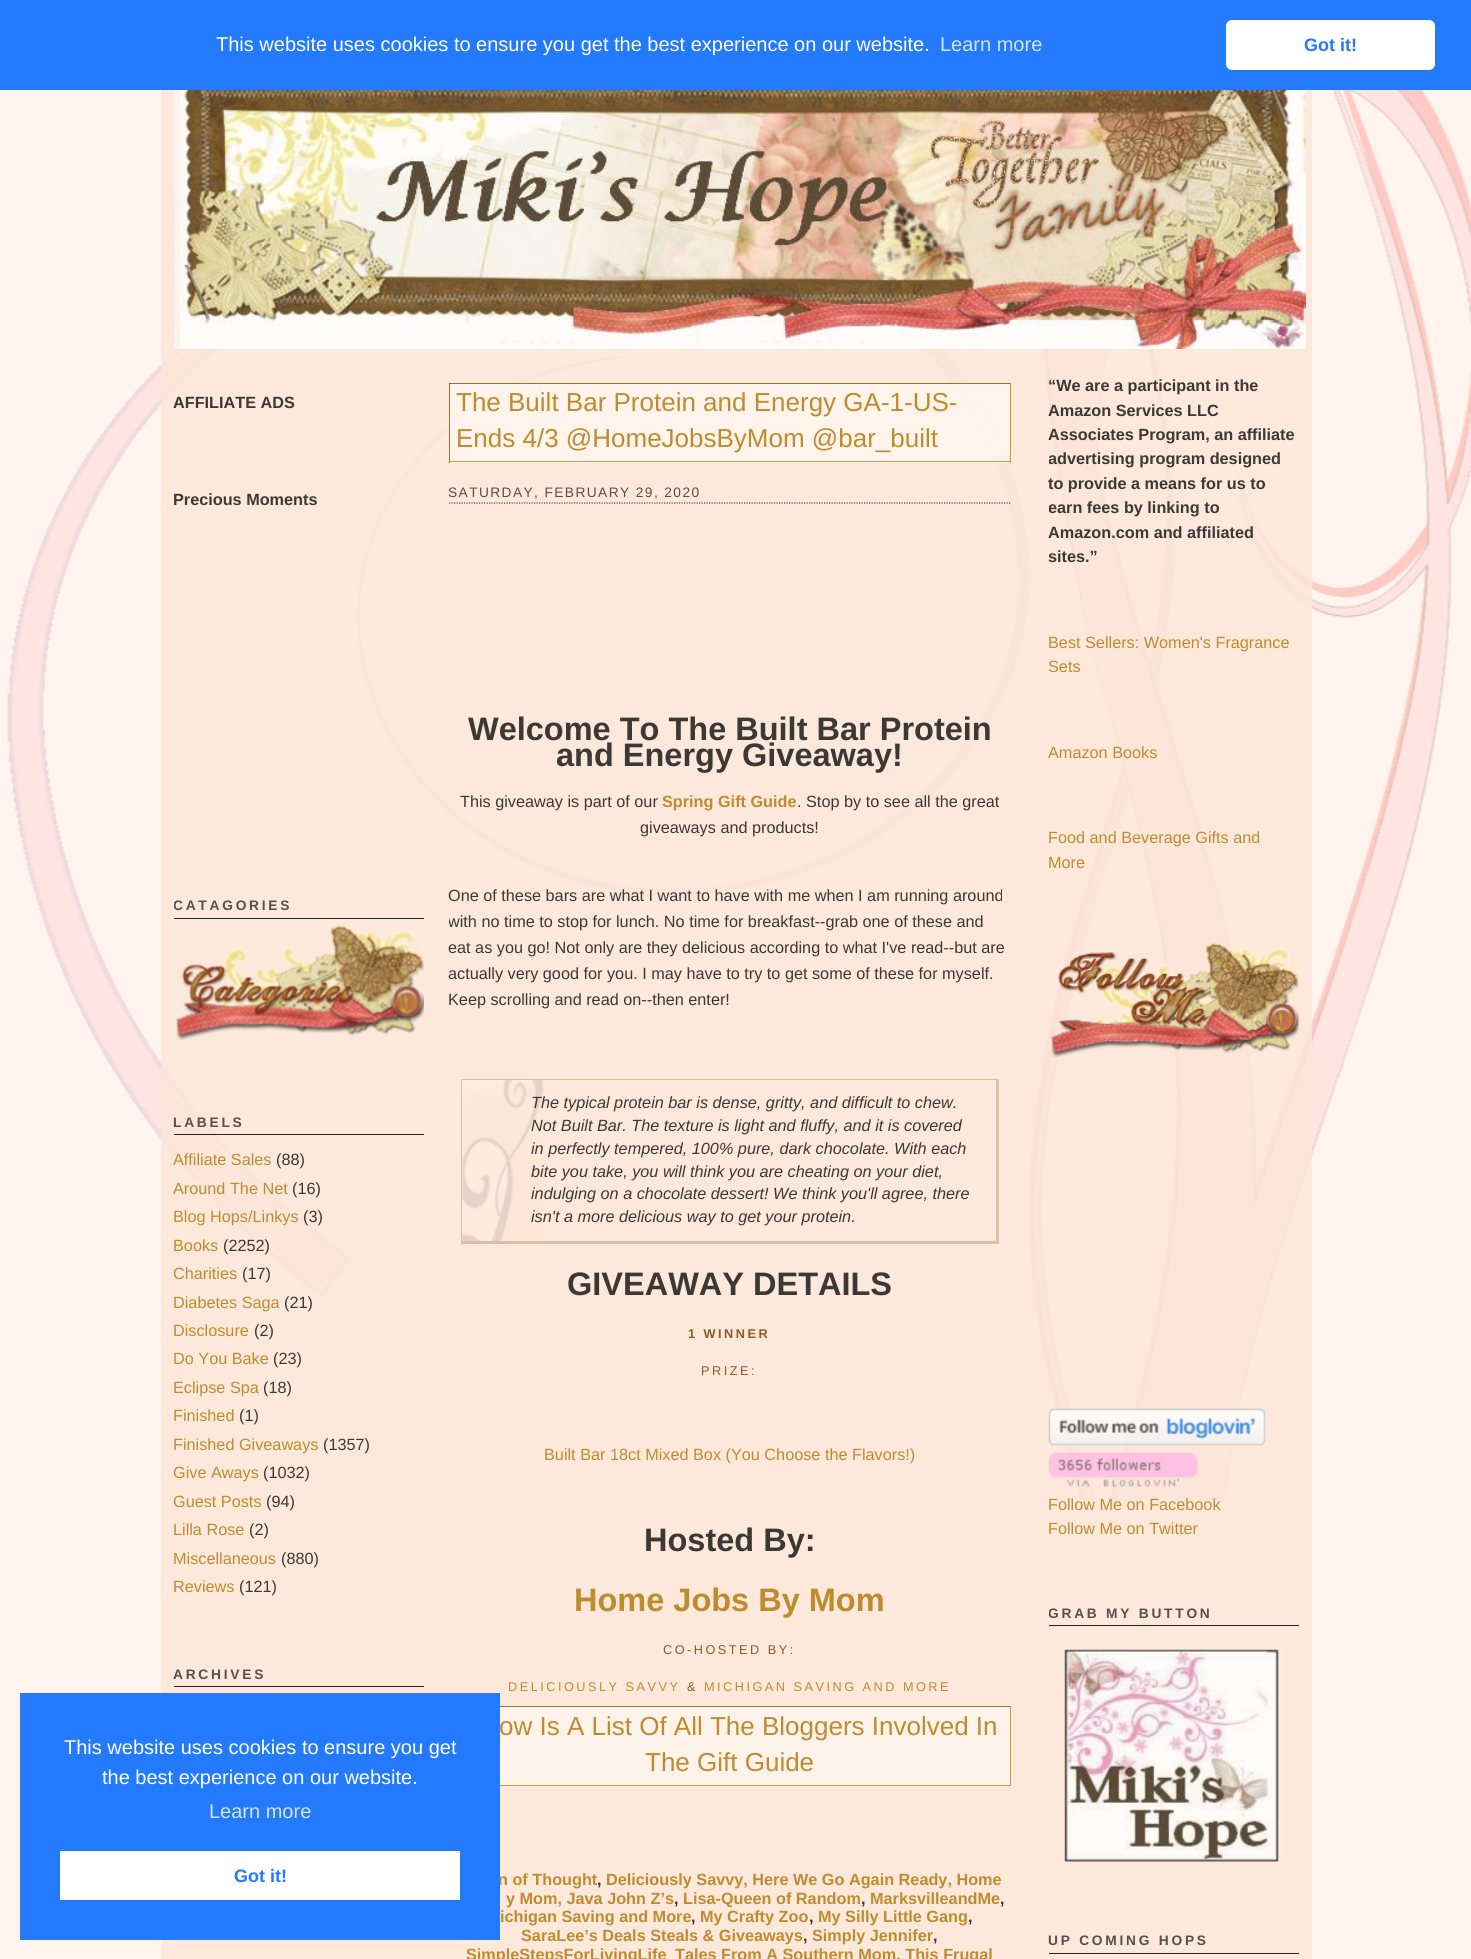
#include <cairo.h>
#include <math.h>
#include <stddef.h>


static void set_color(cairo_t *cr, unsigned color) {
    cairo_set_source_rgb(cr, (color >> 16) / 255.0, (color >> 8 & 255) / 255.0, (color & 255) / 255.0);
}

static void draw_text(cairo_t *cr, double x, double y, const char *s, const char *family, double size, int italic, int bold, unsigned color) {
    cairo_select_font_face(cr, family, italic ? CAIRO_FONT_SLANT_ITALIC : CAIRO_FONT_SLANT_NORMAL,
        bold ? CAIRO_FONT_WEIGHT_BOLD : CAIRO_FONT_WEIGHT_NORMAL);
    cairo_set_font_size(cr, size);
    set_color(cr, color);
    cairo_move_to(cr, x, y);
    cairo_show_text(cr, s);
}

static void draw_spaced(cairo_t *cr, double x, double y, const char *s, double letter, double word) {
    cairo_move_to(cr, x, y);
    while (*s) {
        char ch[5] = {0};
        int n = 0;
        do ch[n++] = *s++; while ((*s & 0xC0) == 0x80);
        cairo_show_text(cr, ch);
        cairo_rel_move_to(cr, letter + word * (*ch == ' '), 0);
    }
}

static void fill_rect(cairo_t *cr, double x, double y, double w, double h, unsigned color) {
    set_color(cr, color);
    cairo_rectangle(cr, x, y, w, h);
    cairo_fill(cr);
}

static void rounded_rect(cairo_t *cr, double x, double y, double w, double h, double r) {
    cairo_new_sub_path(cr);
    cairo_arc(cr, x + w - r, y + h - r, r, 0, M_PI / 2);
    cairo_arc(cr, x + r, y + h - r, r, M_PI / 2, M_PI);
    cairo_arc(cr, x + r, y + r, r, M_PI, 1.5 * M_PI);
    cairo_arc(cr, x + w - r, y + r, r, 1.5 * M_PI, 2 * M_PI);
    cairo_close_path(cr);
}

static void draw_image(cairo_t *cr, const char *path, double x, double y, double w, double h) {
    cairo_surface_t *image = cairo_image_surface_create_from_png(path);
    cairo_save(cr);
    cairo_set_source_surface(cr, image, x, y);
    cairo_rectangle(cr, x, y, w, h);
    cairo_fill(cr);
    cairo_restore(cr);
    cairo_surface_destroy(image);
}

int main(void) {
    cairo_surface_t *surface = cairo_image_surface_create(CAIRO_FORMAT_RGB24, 1471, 1959);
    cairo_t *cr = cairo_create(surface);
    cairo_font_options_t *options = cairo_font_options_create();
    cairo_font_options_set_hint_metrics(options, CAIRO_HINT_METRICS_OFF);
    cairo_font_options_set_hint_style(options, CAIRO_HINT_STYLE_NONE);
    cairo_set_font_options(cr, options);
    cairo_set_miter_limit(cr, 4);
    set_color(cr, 0xFFF5EE);
    cairo_paint(cr);
    draw_image(cr, "assets/img1.png", 7, 90, 1464, 1411);
    fill_rect(cr, 0, 0, 1471, 90, 0x237AFC);
    draw_text(cr, 216, 51, "This website uses cookies to ensure you get the best experience on our website.", "Liberation Sans", 20, 0, 0, 0xFFFFFF);
    draw_text(cr, 940, 51, "Learn more", "Liberation Sans", 20, 0, 0, 0xD3E4FE);
    set_color(cr, 0xFFFFFF);
    rounded_rect(cr, 1226, 20, 209, 50, 6);
    cairo_fill(cr);
    draw_text(cr, 1304, 51, "Got it!", "Liberation Sans", 18, 0, 1, 0x237AFC);
    cairo_set_source_rgba(cr, 0.984, 0.902, 0.847, 0.85);
    cairo_rectangle(cr, 161, 90, 1151, 1869);
    cairo_fill(cr);
    cairo_set_source_rgba(cr, 1, 0.961, 0.933, 0.85);
    cairo_rectangle(cr, 174, 90, 1125, 259);
    cairo_fill(cr);
    draw_image(cr, "assets/img2.png", 173, 90, 147, 99);
    draw_image(cr, "assets/img3.png", 180, 90, 1126, 259);
    draw_text(cr, 173, 408, "AFFILIATE ADS", "Liberation Sans", 16.25, 0, 1, 0x3B3836);
    draw_text(cr, 173, 505, "Precious Moments", "Liberation Sans", 16.25, 0, 1, 0x3B3836);
    fill_rect(cr, 174, 918, 250, 1, 0x262321);
    cairo_save(cr);
    cairo_rectangle(cr, 174, 361, 250, 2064);
    cairo_clip(cr);
    cairo_set_font_size(cr, 13.75);
    set_color(cr, 0x54504D);
    draw_spaced(cr, 173, 910, "CATAGORIES", 2.75, 0);
    cairo_restore(cr);
    draw_image(cr, "assets/img4.png", 176, 918, 248, 122);
    cairo_set_source_rgba(cr, 0, 0, 0, 0.85);
    cairo_rectangle(cr, 174, 1134, 250, 1);
    cairo_fill(cr);
    cairo_set_font_size(cr, 13.75);
    set_color(cr, 0x54504D);
    draw_spaced(cr, 173, 1127, "LABELS", 2.75, 0);
    draw_text(cr, 173, 1165, "Affiliate Sales", "Liberation Sans", 16.25, 0, 0, 0xBF8B2E);
    draw_text(cr, 276, 1165, "(88)", "Liberation Sans", 16.25, 0, 0, 0x3B3836);
    draw_text(cr, 173, 1194, "Around The Net", "Liberation Sans", 16.25, 0, 0, 0xBF8B2E);
    draw_text(cr, 292, 1194, "(16)", "Liberation Sans", 16.25, 0, 0, 0x3B3836);
    draw_text(cr, 173, 1222, "Blog Hops/Linkys", "Liberation Sans", 16.25, 0, 0, 0xBF8B2E);
    draw_text(cr, 303, 1222, "(3)", "Liberation Sans", 16.25, 0, 0, 0x3B3836);
    draw_text(cr, 173, 1251, "Books", "Liberation Sans", 16.25, 0, 0, 0xBF8B2E);
    draw_text(cr, 223, 1251, "(2252)", "Liberation Sans", 16.25, 0, 0, 0x3B3836);
    draw_text(cr, 173, 1279, "Charities", "Liberation Sans", 16.25, 0, 0, 0xBF8B2E);
    draw_text(cr, 242, 1279, "(17)", "Liberation Sans", 16.25, 0, 0, 0x3B3836);
    draw_text(cr, 173, 1308, "Diabetes Saga", "Liberation Sans", 16.25, 0, 0, 0xBF8B2E);
    draw_text(cr, 284, 1308, "(21)", "Liberation Sans", 16.25, 0, 0, 0x3B3836);
    draw_text(cr, 173, 1336, "Disclosure", "Liberation Sans", 16.25, 0, 0, 0xBF8B2E);
    draw_text(cr, 254, 1336, "(2)", "Liberation Sans", 16.25, 0, 0, 0x3B3836);
    draw_text(cr, 173, 1364, "Do You Bake", "Liberation Sans", 16.25, 0, 0, 0xBF8B2E);
    draw_text(cr, 273, 1364, "(23)", "Liberation Sans", 16.25, 0, 0, 0x3B3836);
    draw_text(cr, 173, 1393, "Eclipse Spa", "Liberation Sans", 16.25, 0, 0, 0xBF8B2E);
    draw_text(cr, 263, 1393, "(18)", "Liberation Sans", 16.25, 0, 0, 0x3B3836);
    draw_text(cr, 173, 1421, "Finished", "Liberation Sans", 16.25, 0, 0, 0xBF8B2E);
    draw_text(cr, 239, 1421, "(1)", "Liberation Sans", 16.25, 0, 0, 0x3B3836);
    draw_text(cr, 173, 1450, "Finished Giveaways", "Liberation Sans", 16.25, 0, 0, 0xBF8B2E);
    draw_text(cr, 323, 1450, "(1357)", "Liberation Sans", 16.25, 0, 0, 0x3B3836);
    draw_text(cr, 173, 1478, "Give Aways", "Liberation Sans", 16.25, 0, 0, 0xBF8B2E);
    draw_text(cr, 263, 1478, "(1032)", "Liberation Sans", 16.25, 0, 0, 0x3B3836);
    draw_text(cr, 173, 1507, "Guest Posts", "Liberation Sans", 16.25, 0, 0, 0xBF8B2E);
    draw_text(cr, 266, 1507, "(94)", "Liberation Sans", 16.25, 0, 0, 0x3B3836);
    draw_text(cr, 173, 1535, "Lilla Rose", "Liberation Sans", 16.25, 0, 0, 0xBF8B2E);
    draw_text(cr, 249, 1535, "(2)", "Liberation Sans", 16.25, 0, 0, 0x3B3836);
    draw_text(cr, 173, 1564, "Miscellaneous", "Liberation Sans", 16.25, 0, 0, 0xBF8B2E);
    draw_text(cr, 281, 1564, "(880)", "Liberation Sans", 16.25, 0, 0, 0x3B3836);
    draw_text(cr, 173, 1592, "Reviews", "Liberation Sans", 16.25, 0, 0, 0xBF8B2E);
    draw_text(cr, 239, 1592, "(121)", "Liberation Sans", 16.25, 0, 0, 0x3B3836);
    fill_rect(cr, 174, 1686, 250, 1, 0x262321);
    cairo_select_font_face(cr, "Liberation Sans", CAIRO_FONT_SLANT_NORMAL, CAIRO_FONT_WEIGHT_BOLD);
    cairo_set_font_size(cr, 13.75);
    set_color(cr, 0x54504D);
    draw_spaced(cr, 173, 1679, "ARCHIVES", 2.75, 0);
    draw_image(cr, "assets/img5.png", 336, 1687, 34, 6);
    cairo_set_source_rgba(cr, 1, 0.961, 0.933, 0.85);
    cairo_rectangle(cr, 449, 384, 561, 79);
    cairo_fill(cr);
    fill_rect(cr, 449, 383, 562, 1, 0x927440);
    fill_rect(cr, 1010, 383, 1, 80, 0xC89A4C);
    cairo_set_source_rgba(cr, 0.749, 0.549, 0.2, 0.85);
    cairo_rectangle(cr, 449, 461, 562, 1);
    cairo_fill(cr);
    cairo_set_source_rgba(cr, 0.498, 0.365, 0.133, 0.85);
    cairo_rectangle(cr, 449, 383, 1, 80);
    cairo_fill(cr);
    draw_text(cr, 456, 411, "The Built Bar Protein and Energy GA-1-US-", "Liberation Sans", 26, 0, 0, 0xBF8B2E);
    draw_text(cr, 456, 447, "Ends 4/3 @HomeJobsByMom @bar_built", "Liberation Sans", 26, 0, 0, 0xBF8B2E);
    cairo_new_path(cr);
    cairo_move_to(cr, 449, 503);
    cairo_line_to(cr, 1011, 503);
    cairo_set_source_rgba(cr, 0.212, 0.208, 0.204, 0.85);
    cairo_set_line_width(cr, 1.2);
    cairo_set_dash(cr, (double[]){1.25, 1.25}, 2, 0);
    cairo_stroke(cr);
    cairo_set_font_size(cr, 13.75);
    set_color(cr, 0x54504D);
    draw_spaced(cr, 448, 497, "SATURDAY, FEBRUARY 29, 2020", 1.4, 0);
    draw_text(cr, 468, 740, "Welcome To The Built Bar Protein", "Liberation Sans", 32.5, 0, 1, 0x3B3836);
    draw_text(cr, 556, 766, "and Energy Giveaway!", "Liberation Sans", 32.5, 0, 1, 0x3B3836);
    draw_text(cr, 460, 807, "This giveaway is part of our", "Liberation Sans", 16.25, 0, 0, 0x3B3836);
    draw_text(cr, 662, 807, "Spring Gift Guide", "Liberation Sans", 16.25, 0, 1, 0xBF8B2E);
    draw_text(cr, 797, 807, ". Stop by to see all the great", "Liberation Sans", 16.25, 0, 0, 0x3B3836);
    draw_text(cr, 640, 833, "giveaways and products!", "Liberation Sans", 16.25, 0, 0, 0x3B3836);
    draw_text(cr, 448, 901, "One of these bars are what I want to have with me when I am running around", "Liberation Sans", 16.25, 0, 0, 0x3B3836);
    cairo_save(cr);
    cairo_rectangle(cr, 449, 361, 562, 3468);
    cairo_clip(cr);
    draw_text(cr, 448, 927, "with no time to stop for lunch. No time for breakfast--grab one of these and", "Liberation Sans", 16.25, 0, 0, 0x3B3836);
    cairo_restore(cr);
    draw_text(cr, 448, 953, "eat as you go! Not only are they delicious according to what I've read--but are", "Liberation Sans", 16.25, 0, 0, 0x3B3836);
    draw_text(cr, 448, 979, "actually very good for you. I may have to try to get some of these for myself.", "Liberation Sans", 16.25, 0, 0, 0x3B3836);
    draw_text(cr, 448, 1005, "Keep scrolling and read on--then enter!", "Liberation Sans", 16.25, 0, 0, 0x3B3836);
    draw_image(cr, "assets/img6.png", 462, 1080, 82, 161);
    fill_rect(cr, 461, 1079, 538, 1, 0xDCBEA5);
    fill_rect(cr, 996, 1079, 3, 165, 0xDCBEA5);
    fill_rect(cr, 461, 1241, 538, 3, 0xDCBEA5);
    fill_rect(cr, 461, 1079, 1, 165, 0xDCBEA5);
    draw_text(cr, 531, 1108, "The typical protein bar is dense, gritty, and difficult to chew.", "Liberation Sans", 16.25, 1, 0, 0x3B3836);
    draw_text(cr, 531, 1131, "Not Built Bar. The texture is light and fluffy, and it is covered", "Liberation Sans", 16.25, 1, 0, 0x3B3836);
    draw_text(cr, 531, 1154, "in perfectly tempered, 100% pure, dark chocolate. With each", "Liberation Sans", 16.25, 1, 0, 0x3B3836);
    draw_text(cr, 531, 1177, "bite you take, you will think you are cheating on your diet,", "Liberation Sans", 16.25, 1, 0, 0x3B3836);
    draw_text(cr, 531, 1199, "indulging on a chocolate dessert! We think you'll agree, there", "Liberation Sans", 16.25, 1, 0, 0x3B3836);
    draw_text(cr, 531, 1222, "isn't a more delicious way to get your protein.", "Liberation Sans", 16.25, 1, 0, 0x3B3836);
    draw_text(cr, 567, 1295, "GIVEAWAY DETAILS", "Liberation Sans", 32.5, 0, 1, 0x3B3836);
    cairo_set_font_size(cr, 12.7);
    set_color(cr, 0x935921);
    draw_spaced(cr, 688, 1338, "1 WINNER", 2.5, 0);
    cairo_select_font_face(cr, "Liberation Sans", CAIRO_FONT_SLANT_NORMAL, CAIRO_FONT_WEIGHT_NORMAL);
    draw_spaced(cr, 701, 1375, "PRIZE:", 2.5, 0);
    draw_text(cr, 544, 1460, "Built Bar 18ct Mixed Box (You Choose the Flavors!)", "Liberation Sans", 16.25, 0, 0, 0xBF8B2E);
    draw_text(cr, 644, 1551, "Hosted By:", "Liberation Sans", 32.5, 0, 1, 0x3B3836);
    draw_text(cr, 574, 1611, "Home Jobs By Mom", "Liberation Sans", 32.5, 0, 1, 0xBF8B2E);
    cairo_select_font_face(cr, "Liberation Sans", CAIRO_FONT_SLANT_NORMAL, CAIRO_FONT_WEIGHT_NORMAL);
    cairo_set_font_size(cr, 12.7);
    set_color(cr, 0x935921);
    draw_spaced(cr, 663, 1654, "CO-HOSTED BY:", 2.5, 0);
    set_color(cr, 0xBF8B2E);
    draw_spaced(cr, 508, 1691, "DELICIOUSLY SAVVY", 2.5, 0);
    set_color(cr, 0x935921);
    draw_spaced(cr, 687, 1691, "&", 2.5, 0);
    set_color(cr, 0xBF8B2E);
    draw_spaced(cr, 704, 1691, "MICHIGAN SAVING AND MORE", 2.5, 0);
    fill_rect(cr, 500, 1707, 510, 78, 0xFEF3EB);
    fill_rect(cr, 500, 1706, 511, 1, 0x92723E);
    fill_rect(cr, 1010, 1706, 1, 80, 0xC89A4C);
    fill_rect(cr, 500, 1785, 511, 1, 0xC89A4C);
    draw_text(cr, 499, 1735, "ow Is A List Of All The Bloggers Involved In", "Liberation Sans", 26, 0, 0, 0xBF8B2E);
    draw_text(cr, 645, 1771, "The Gift Guide", "Liberation Sans", 26, 0, 0, 0xBF8B2E);
    draw_text(cr, 498, 1885, "n of Thought", "Liberation Sans", 16.25, 0, 1, 0xBF8B2E);
    draw_text(cr, 597, 1885, ",", "Liberation Sans", 16.25, 0, 1, 0x3B3836);
    draw_text(cr, 606, 1885, "Deliciously Savvy, Here We Go Again Ready, Home", "Liberation Sans", 16.25, 0, 1, 0xBF8B2E);
    draw_text(cr, 506, 1904, "y Mom, Java John Z’s", "Liberation Sans", 16.25, 0, 1, 0xBF8B2E);
    draw_text(cr, 674, 1904, ",", "Liberation Sans", 16.25, 0, 1, 0x3B3836);
    draw_text(cr, 683, 1904, "Lisa-Queen of Random", "Liberation Sans", 16.25, 0, 1, 0xBF8B2E);
    draw_text(cr, 861, 1904, ",", "Liberation Sans", 16.25, 0, 1, 0x3B3836);
    draw_text(cr, 870, 1904, "MarksvilleandMe", "Liberation Sans", 16.25, 0, 1, 0xBF8B2E);
    draw_text(cr, 1000, 1904, ",", "Liberation Sans", 16.25, 0, 1, 0x3B3836);
    draw_text(cr, 500, 1922, "ichigan Saving and More", "Liberation Sans", 16.25, 0, 1, 0xBF8B2E);
    draw_text(cr, 691, 1922, ",", "Liberation Sans", 16.25, 0, 1, 0x3B3836);
    draw_text(cr, 700, 1922, "My Crafty Zoo", "Liberation Sans", 16.25, 0, 1, 0xBF8B2E);
    draw_text(cr, 809, 1922, ",", "Liberation Sans", 16.25, 0, 1, 0x3B3836);
    draw_text(cr, 818, 1922, "My Silly Little Gang", "Liberation Sans", 16.25, 0, 1, 0xBF8B2E);
    draw_text(cr, 968, 1922, ",", "Liberation Sans", 16.25, 0, 1, 0x3B3836);
    draw_text(cr, 521, 1941, "SaraLee’s Deals Steals & Giveaways", "Liberation Sans", 16.25, 0, 1, 0xBF8B2E);
    draw_text(cr, 803, 1941, ",", "Liberation Sans", 16.25, 0, 1, 0x3B3836);
    draw_text(cr, 812, 1941, "Simply Jennifer", "Liberation Sans", 16.25, 0, 1, 0xBF8B2E);
    draw_text(cr, 933, 1941, ",", "Liberation Sans", 16.25, 0, 1, 0x3B3836);
    draw_text(cr, 466, 1960, "SimpleStepsForLivingLife", "Liberation Sans", 16.25, 0, 1, 0xBF8B2E);
    draw_text(cr, 675, 1960, "Tales From A Southern Mom, This Frugal", "Liberation Sans", 16.25, 0, 1, 0xBF8B2E);
    draw_text(cr, 1048, 391, "“We are a participant in the", "Liberation Sans", 16.25, 0, 1, 0x3B3836);
    draw_text(cr, 1048, 416, "Amazon Services LLC", "Liberation Sans", 16.25, 0, 1, 0x3B3836);
    draw_text(cr, 1048, 440, "Associates Program, an affiliate", "Liberation Sans", 16.25, 0, 1, 0x3B3836);
    cairo_save(cr);
    cairo_rectangle(cr, 1049, 361, 250, 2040);
    cairo_clip(cr);
    draw_text(cr, 1048, 464, "advertising program designed", "Liberation Sans", 16.25, 0, 1, 0x3B3836);
    cairo_restore(cr);
    draw_text(cr, 1048, 489, "to provide a means for us to", "Liberation Sans", 16.25, 0, 1, 0x3B3836);
    cairo_save(cr);
    cairo_rectangle(cr, 1049, 361, 250, 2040);
    cairo_clip(cr);
    draw_text(cr, 1048, 513, "earn fees by linking to", "Liberation Sans", 16.25, 0, 1, 0x3B3836);
    cairo_restore(cr);
    draw_text(cr, 1048, 538, "Amazon.com and affiliated", "Liberation Sans", 16.25, 0, 1, 0x3B3836);
    draw_text(cr, 1048, 562, "sites.”", "Liberation Sans", 16.25, 0, 1, 0x3B3836);
    draw_text(cr, 1048, 648, "Best Sellers: Women's Fragrance", "Liberation Sans", 16.25, 0, 0, 0xBF8B2E);
    draw_text(cr, 1048, 672, "Sets", "Liberation Sans", 16.25, 0, 0, 0xBF8B2E);
    draw_text(cr, 1048, 758, "Amazon Books", "Liberation Sans", 16.25, 0, 0, 0xBF8B2E);
    draw_text(cr, 1048, 843, "Food and Beverage Gifts and", "Liberation Sans", 16.25, 0, 0, 0xBF8B2E);
    draw_text(cr, 1048, 868, "More", "Liberation Sans", 16.25, 0, 0, 0xBF8B2E);
    draw_image(cr, "assets/img7.png", 1051, 936, 248, 122);
    draw_image(cr, "assets/img8.png", 1048, 1408, 218, 38);
    draw_image(cr, "assets/img9.png", 1048, 1452, 150, 35);
    draw_text(cr, 1048, 1510, "Follow Me on Facebook", "Liberation Sans", 16.25, 0, 0, 0xBF8B2E);
    draw_text(cr, 1048, 1534, "Follow Me on Twitter", "Liberation Sans", 16.25, 0, 0, 0xBF8B2E);
    fill_rect(cr, 1049, 1625, 250, 1, 0x262321);
    cairo_save(cr);
    cairo_rectangle(cr, 1049, 361, 250, 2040);
    cairo_clip(cr);
    cairo_select_font_face(cr, "Liberation Sans", CAIRO_FONT_SLANT_NORMAL, CAIRO_FONT_WEIGHT_BOLD);
    cairo_set_font_size(cr, 13.75);
    set_color(cr, 0x54504D);
    draw_spaced(cr, 1048, 1618, "GRAB MY BUTTON", 2.75, 0);
    cairo_restore(cr);
    draw_image(cr, "assets/img10.png", 1064, 1649, 217, 213);
    fill_rect(cr, 1049, 1953, 250, 1, 0x262321);
    cairo_select_font_face(cr, "Liberation Sans", CAIRO_FONT_SLANT_NORMAL, CAIRO_FONT_WEIGHT_BOLD);
    cairo_set_font_size(cr, 13.75);
    set_color(cr, 0x54504D);
    draw_spaced(cr, 1048, 1945, "UP COMING HOPS", 2.75, 0);
    fill_rect(cr, 20, 1693, 480, 247, 0x237AFC);
    draw_text(cr, 64, 1754, "This website uses cookies to ensure you get", "Liberation Sans", 20, 0, 0, 0xFFFFFF);
    draw_text(cr, 102, 1784, "the best experience on our website.", "Liberation Sans", 20, 0, 0, 0xFFFFFF);
    draw_text(cr, 209, 1818, "Learn more", "Liberation Sans", 20, 0, 0, 0xD3E4FE);
    fill_rect(cr, 60, 1851, 400, 49, 0xFFFFFF);
    draw_text(cr, 234, 1882, "Got it!", "Liberation Sans", 18, 0, 1, 0x237AFC);
    cairo_surface_write_to_png(surface, "output.png");
    cairo_font_options_destroy(options);
    cairo_destroy(cr);
    cairo_surface_destroy(surface);
    return 0;
}
